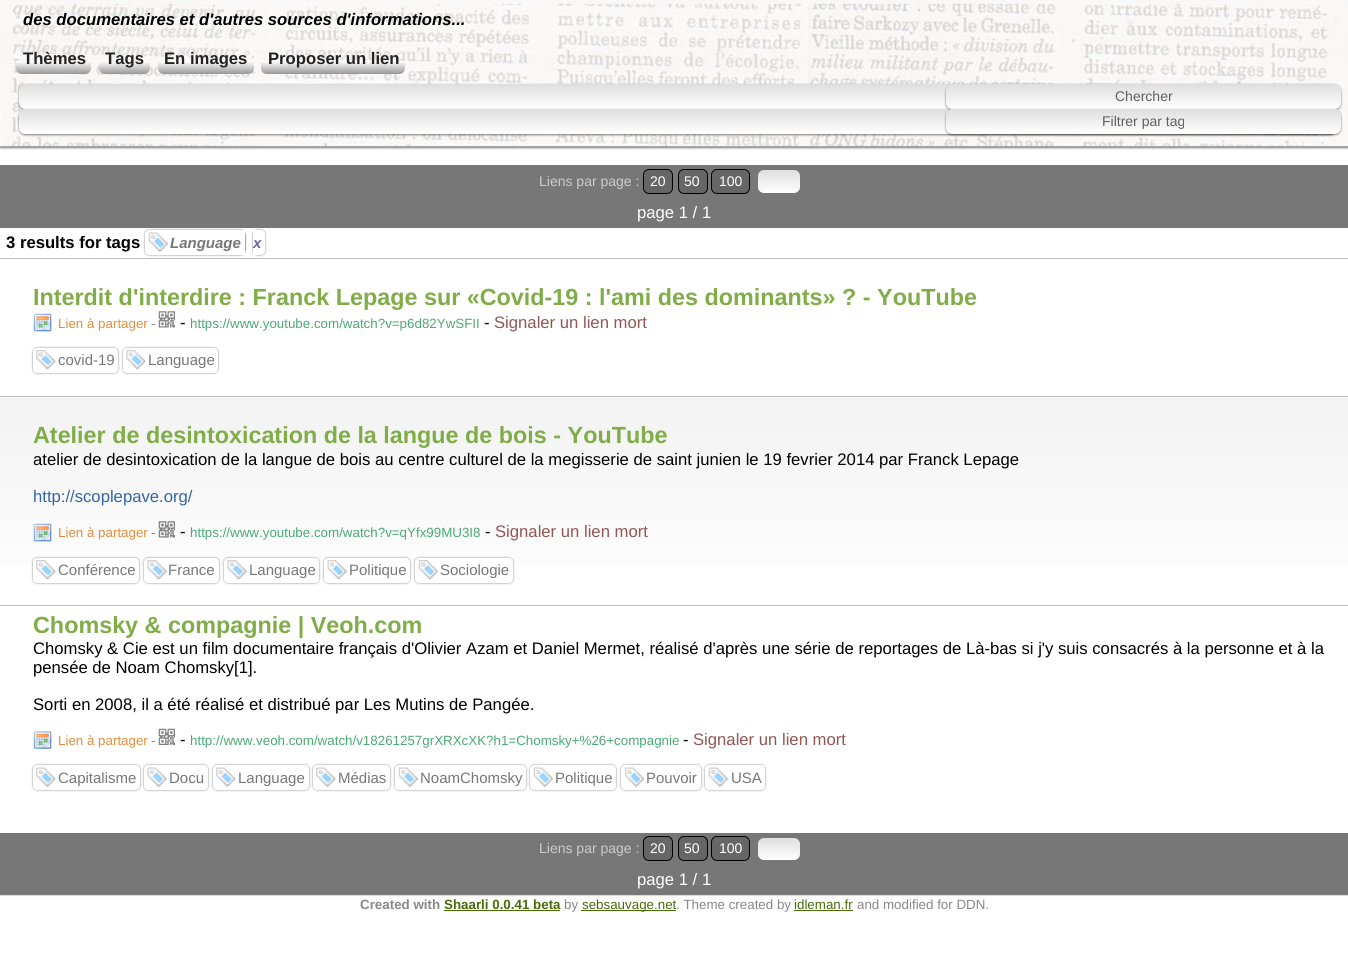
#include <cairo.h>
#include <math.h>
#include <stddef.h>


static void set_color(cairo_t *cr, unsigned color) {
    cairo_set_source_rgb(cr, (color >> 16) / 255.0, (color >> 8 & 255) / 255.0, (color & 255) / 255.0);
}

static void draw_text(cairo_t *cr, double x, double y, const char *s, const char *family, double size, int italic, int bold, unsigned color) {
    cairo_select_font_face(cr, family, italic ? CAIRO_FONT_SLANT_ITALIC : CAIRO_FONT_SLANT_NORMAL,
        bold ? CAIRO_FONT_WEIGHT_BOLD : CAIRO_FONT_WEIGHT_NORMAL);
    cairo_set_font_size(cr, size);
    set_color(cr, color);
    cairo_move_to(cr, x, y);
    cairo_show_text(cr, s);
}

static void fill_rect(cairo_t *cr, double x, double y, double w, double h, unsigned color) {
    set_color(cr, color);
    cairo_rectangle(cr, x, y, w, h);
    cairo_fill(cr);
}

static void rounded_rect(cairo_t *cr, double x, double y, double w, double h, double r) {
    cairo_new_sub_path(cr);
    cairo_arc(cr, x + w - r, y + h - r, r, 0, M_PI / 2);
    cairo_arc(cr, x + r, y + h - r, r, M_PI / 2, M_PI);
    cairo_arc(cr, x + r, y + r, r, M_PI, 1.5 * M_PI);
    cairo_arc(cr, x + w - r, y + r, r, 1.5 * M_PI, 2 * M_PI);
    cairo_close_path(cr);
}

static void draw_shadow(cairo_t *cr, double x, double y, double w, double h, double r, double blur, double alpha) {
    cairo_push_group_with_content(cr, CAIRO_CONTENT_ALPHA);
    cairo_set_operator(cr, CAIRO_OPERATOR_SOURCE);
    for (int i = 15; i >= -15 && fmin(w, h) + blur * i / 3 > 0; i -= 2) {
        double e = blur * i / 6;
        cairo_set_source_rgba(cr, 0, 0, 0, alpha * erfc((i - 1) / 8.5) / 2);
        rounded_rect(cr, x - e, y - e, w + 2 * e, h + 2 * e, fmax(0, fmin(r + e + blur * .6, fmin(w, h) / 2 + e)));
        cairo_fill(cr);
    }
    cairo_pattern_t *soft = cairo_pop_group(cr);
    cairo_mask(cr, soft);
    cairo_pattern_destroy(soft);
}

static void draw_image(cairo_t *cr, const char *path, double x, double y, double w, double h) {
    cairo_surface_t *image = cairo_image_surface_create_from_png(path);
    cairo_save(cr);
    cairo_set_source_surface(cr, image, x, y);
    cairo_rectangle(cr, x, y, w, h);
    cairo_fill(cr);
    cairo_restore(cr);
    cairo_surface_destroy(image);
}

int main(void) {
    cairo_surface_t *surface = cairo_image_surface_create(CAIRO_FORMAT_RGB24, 1348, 973);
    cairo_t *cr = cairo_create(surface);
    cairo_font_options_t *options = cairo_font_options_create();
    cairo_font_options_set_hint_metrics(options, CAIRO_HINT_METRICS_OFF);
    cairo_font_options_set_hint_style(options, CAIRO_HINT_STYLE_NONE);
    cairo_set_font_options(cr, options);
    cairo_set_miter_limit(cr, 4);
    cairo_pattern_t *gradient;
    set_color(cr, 0xFFFFFF);
    cairo_paint(cr);
    set_color(cr, 0x000000);
    draw_shadow(cr, 0, 1, 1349, 147, 0, 1, 0.5);
    fill_rect(cr, 0, 0, 1348, 3, 0xF9F8F8);
    draw_image(cr, "assets/img1.png", 0, 3, 1348, 144);
    draw_text(cr, 23, 25, "des documentaires et d'autres sources d'informations...", "Liberation Sans", 16.67, 1, 1, 0x000000);
    gradient = cairo_pattern_create_linear(54, 61, 54, 93);
    cairo_pattern_add_color_stop_rgba(gradient, 0, 1, 1, 1, 1);
    cairo_pattern_add_color_stop_rgba(gradient, 1, 0, 0, 0, 1);
    cairo_set_source(cr, gradient);
    cairo_pattern_destroy(gradient);
    cairo_new_path(cr);
    cairo_move_to(cr, 16, 61);
    cairo_line_to(cr, 91, 61);
    cairo_line_to(cr, 91, 68);
    cairo_curve_to(cr, 91, 71.5, 88.5, 74, 85, 74);
    cairo_line_to(cr, 22, 74);
    cairo_curve_to(cr, 18.5, 74, 16, 71.5, 16, 68);
    cairo_close_path(cr);
    cairo_fill(cr);
    draw_text(cr, 23, 64, "Thèmes", "Liberation Sans", 16.67, 0, 1, 0x222222);
    gradient = cairo_pattern_create_linear(124, 61, 124, 93);
    cairo_pattern_add_color_stop_rgba(gradient, 0, 1, 1, 1, 1);
    cairo_pattern_add_color_stop_rgba(gradient, 1, 0, 0, 0, 1);
    cairo_set_source(cr, gradient);
    cairo_pattern_destroy(gradient);
    cairo_new_path(cr);
    cairo_move_to(cr, 99, 61);
    cairo_line_to(cr, 150, 61);
    cairo_line_to(cr, 150, 68);
    cairo_curve_to(cr, 150, 71.5, 147.5, 74, 144, 74);
    cairo_line_to(cr, 105, 74);
    cairo_curve_to(cr, 101.5, 74, 99, 71.5, 99, 68);
    cairo_close_path(cr);
    cairo_fill(cr);
    draw_text(cr, 105, 64, "Tags", "Liberation Sans", 16.67, 0, 1, 0x222222);
    gradient = cairo_pattern_create_linear(206, 61, 206, 93);
    cairo_pattern_add_color_stop_rgba(gradient, 0, 1, 1, 1, 1);
    cairo_pattern_add_color_stop_rgba(gradient, 1, 0, 0, 0, 1);
    cairo_set_source(cr, gradient);
    cairo_pattern_destroy(gradient);
    cairo_new_path(cr);
    cairo_move_to(cr, 158, 61);
    cairo_line_to(cr, 254, 61);
    cairo_line_to(cr, 254, 68);
    cairo_curve_to(cr, 254, 71.5, 251.5, 74, 248, 74);
    cairo_line_to(cr, 164, 74);
    cairo_curve_to(cr, 160.5, 74, 158, 71.5, 158, 68);
    cairo_close_path(cr);
    cairo_fill(cr);
    draw_text(cr, 164, 64, "En images", "Liberation Sans", 16.67, 0, 1, 0x222222);
    gradient = cairo_pattern_create_linear(333, 61, 333, 93);
    cairo_pattern_add_color_stop_rgba(gradient, 0, 1, 1, 1, 1);
    cairo_pattern_add_color_stop_rgba(gradient, 1, 0, 0, 0, 1);
    cairo_set_source(cr, gradient);
    cairo_pattern_destroy(gradient);
    cairo_new_path(cr);
    cairo_move_to(cr, 261, 61);
    cairo_line_to(cr, 405, 61);
    cairo_line_to(cr, 405, 68);
    cairo_curve_to(cr, 405, 71.5, 402.5, 74, 399, 74);
    cairo_line_to(cr, 267, 74);
    cairo_curve_to(cr, 263.5, 74, 261, 71.5, 261, 68);
    cairo_close_path(cr);
    cairo_fill(cr);
    draw_text(cr, 268, 64, "Proposer un lien", "Liberation Sans", 16.67, 0, 1, 0x222222);
    set_color(cr, 0x000000);
    draw_shadow(cr, 19, 85, 1317, 25, 6, 1, 0.5);
    gradient = cairo_pattern_create_linear(678, 84, 678, 109);
    cairo_pattern_add_color_stop_rgba(gradient, 0, 0.871, 0.871, 0.871, 1);
    cairo_pattern_add_color_stop_rgba(gradient, 1, 1, 1, 1, 1);
    cairo_set_source(cr, gradient);
    cairo_pattern_destroy(gradient);
    rounded_rect(cr, 19, 84, 1317, 25, 6);
    cairo_fill(cr);
    set_color(cr, 0x000000);
    draw_shadow(cr, 19, 110, 1317, 25, 6, 1, 0.5);
    gradient = cairo_pattern_create_linear(678, 109, 678, 134);
    cairo_pattern_add_color_stop_rgba(gradient, 0, 0.871, 0.871, 0.871, 1);
    cairo_pattern_add_color_stop_rgba(gradient, 1, 1, 1, 1, 1);
    cairo_set_source(cr, gradient);
    cairo_pattern_destroy(gradient);
    rounded_rect(cr, 19, 109, 1317, 25, 6);
    cairo_fill(cr);
    set_color(cr, 0x000000);
    draw_shadow(cr, 946, 85, 395, 25, 6, 1, 0.5);
    gradient = cairo_pattern_create_linear(1144, 84, 1144, 109);
    cairo_pattern_add_color_stop_rgba(gradient, 0, 0.871, 0.871, 0.871, 1);
    cairo_pattern_add_color_stop_rgba(gradient, 1, 1, 1, 1, 1);
    cairo_set_source(cr, gradient);
    cairo_pattern_destroy(gradient);
    rounded_rect(cr, 946, 84, 395, 25, 6);
    cairo_fill(cr);
    draw_text(cr, 1115, 101, "Chercher", "Liberation Sans", 14, 0, 0, 0x606060);
    set_color(cr, 0x000000);
    draw_shadow(cr, 946, 110, 395, 25, 6, 1, 0.5);
    gradient = cairo_pattern_create_linear(1144, 109, 1144, 134);
    cairo_pattern_add_color_stop_rgba(gradient, 0, 0.871, 0.871, 0.871, 1);
    cairo_pattern_add_color_stop_rgba(gradient, 1, 1, 1, 1, 1);
    cairo_set_source(cr, gradient);
    cairo_pattern_destroy(gradient);
    rounded_rect(cr, 946, 109, 395, 25, 6);
    cairo_fill(cr);
    draw_text(cr, 1102, 126, "Filtrer par tag", "Liberation Sans", 14, 0, 0, 0x606060);
    fill_rect(cr, 0, 165, 1348, 63, 0x777777);
    draw_text(cr, 539, 186, "Liens par page :", "Liberation Sans", 14, 0, 0, 0xCCCCCC);
    set_color(cr, 0x666666);
    rounded_rect(cr, 643.5, 169.5, 29, 24, 5.5);
    cairo_fill_preserve(cr);
    set_color(cr, 0x000000);
    cairo_set_line_width(cr, 1);
    cairo_stroke(cr);
    draw_text(cr, 650, 186, "20", "Liberation Sans", 14, 0, 0, 0xFFFFFF);
    set_color(cr, 0x666666);
    rounded_rect(cr, 678.5, 169.5, 29, 24, 5.5);
    cairo_fill_preserve(cr);
    set_color(cr, 0x000000);
    cairo_stroke(cr);
    draw_text(cr, 684, 186, "50", "Liberation Sans", 14, 0, 0, 0xFFFFFF);
    set_color(cr, 0x666666);
    rounded_rect(cr, 711.5, 169.5, 38, 24, 5.5);
    cairo_fill_preserve(cr);
    set_color(cr, 0x000000);
    cairo_stroke(cr);
    draw_text(cr, 719, 186, "100", "Liberation Sans", 14, 0, 0, 0xFFFFFF);
    gradient = cairo_pattern_create_linear(779, 170, 779, 193);
    cairo_pattern_add_color_stop_rgba(gradient, 0, 0.871, 0.871, 0.871, 1);
    cairo_pattern_add_color_stop_rgba(gradient, 1, 1, 1, 1, 1);
    cairo_set_source(cr, gradient);
    cairo_pattern_destroy(gradient);
    rounded_rect(cr, 758, 170, 42, 23, 6);
    cairo_fill(cr);
    draw_text(cr, 637, 218, "page 1 / 1", "Liberation Sans", 16.67, 0, 0, 0xFFFFFF);
    draw_text(cr, 6, 248, "3 results for tags", "Liberation Sans", 16.67, 0, 1, 0x000000);
    fill_rect(cr, 0, 258, 1348, 1, 0xBBBBBB);
    set_color(cr, 0x000000);
    draw_shadow(cr, 145, 230, 100, 25, 4, 1, 0.5);
    set_color(cr, 0xFFFFFF);
    cairo_new_path(cr);
    cairo_move_to(cr, 149, 230);
    cairo_line_to(cr, 245, 230);
    cairo_line_to(cr, 245, 255);
    cairo_line_to(cr, 149, 255);
    cairo_curve_to(cr, 147, 255, 145, 253, 145, 251);
    cairo_line_to(cr, 145, 234);
    cairo_curve_to(cr, 145, 232, 147, 230, 149, 230);
    cairo_close_path(cr);
    cairo_fill(cr);
    draw_image(cr, "assets/img2.png", 148, 232, 21, 21);
    draw_text(cr, 170, 248, "Language", "Liberation Sans", 15, 1, 1, 0x777777);
    fill_rect(cr, 245, 234, 1, 17, 0xAAAAAA);
    set_color(cr, 0x000000);
    draw_shadow(cr, 253, 230, 12, 25, 4, 1, 0.5);
    set_color(cr, 0xFFFFFF);
    cairo_new_path(cr);
    cairo_move_to(cr, 253, 230);
    cairo_line_to(cr, 261, 230);
    cairo_curve_to(cr, 263, 230, 265, 232, 265, 234);
    cairo_line_to(cr, 265, 251);
    cairo_curve_to(cr, 265, 253, 263, 255, 261, 255);
    cairo_line_to(cr, 253, 255);
    cairo_close_path(cr);
    cairo_fill(cr);
    draw_text(cr, 253, 248, "x", "Liberation Sans", 15, 1, 1, 0x6767A7);
    draw_text(cr, 33, 305, "Interdit d'interdire : Franck Lepage sur «Covid-19 : l'ami des dominants» ? - YouTube", "Liberation Sans", 23.35, 0, 1, 0x80AD48);
    draw_image(cr, "assets/img3.png", 33, 313, 19, 19);
    draw_text(cr, 58, 328, "Lien à partager", "Liberation Sans", 13.35, 0, 0, 0xE28E3F);
    draw_text(cr, 151, 328, "-", "Liberation Sans", 13.35, 0, 0, 0x888888);
    draw_image(cr, "assets/img4.png", 158, 311, 17, 17);
    draw_text(cr, 180, 328, "-", "Liberation Sans", 16.67, 0, 0, 0x000000);
    draw_text(cr, 190, 328, "https://www.youtube.com/watch?v=p6d82YwSFII", "Liberation Sans", 13.35, 0, 0, 0x4BAA74);
    draw_text(cr, 484, 328, "-", "Liberation Sans", 16.67, 0, 0, 0x000000);
    draw_text(cr, 494, 328, "Signaler un lien mort", "Liberation Sans", 16.67, 0, 0, 0x935555);
    set_color(cr, 0x000000);
    draw_shadow(cr, 33, 348, 85, 25, 4, 1, 0.5);
    set_color(cr, 0xFFFFFF);
    rounded_rect(cr, 33, 348, 85, 25, 4);
    cairo_fill(cr);
    draw_image(cr, "assets/img5.png", 36, 350, 20, 20);
    draw_text(cr, 58, 365, "covid-19", "Liberation Sans", 15, 0, 0, 0x777777);
    set_color(cr, 0x000000);
    draw_shadow(cr, 123, 348, 95, 25, 4, 1, 0.5);
    set_color(cr, 0xFFFFFF);
    rounded_rect(cr, 123, 348, 95, 25, 4);
    cairo_fill(cr);
    draw_image(cr, "assets/img5.png", 126, 350, 20, 20);
    draw_text(cr, 148, 365, "Language", "Liberation Sans", 15, 0, 0, 0x777777);
    gradient = cairo_pattern_create_linear(674, 397, 674, 605);
    cairo_pattern_add_color_stop_rgba(gradient, 0, 0.949, 0.949, 0.949, 1);
    cairo_pattern_add_color_stop_rgba(gradient, 1, 1, 1, 1, 1);
    cairo_set_source(cr, gradient);
    cairo_pattern_destroy(gradient);
    cairo_rectangle(cr, 0, 398, 1348, 167);
    cairo_fill(cr);
    fill_rect(cr, 0, 396, 1348, 1, 0xBBBBBB);
    draw_text(cr, 33, 443, "Atelier de desintoxication de la langue de bois - YouTube", "Liberation Sans", 23.35, 0, 1, 0x80AD48);
    draw_text(cr, 33, 465, "atelier de desintoxication de la langue de bois au centre culturel de la megisserie de saint junien le 19 fevrier 2014 par Franck Lepage", "Liberation Sans", 16.67, 0, 0, 0x000000);
    draw_text(cr, 33, 502, "http://scoplepave.org/", "Liberation Sans", 16.67, 0, 0, 0x3465A4);
    draw_image(cr, "assets/img6.png", 33, 523, 19, 19);
    draw_text(cr, 58, 537, "Lien à partager", "Liberation Sans", 13.35, 0, 0, 0xE28E3F);
    draw_text(cr, 151, 537, "-", "Liberation Sans", 13.35, 0, 0, 0x888888);
    draw_image(cr, "assets/img7.png", 158, 521, 17, 17);
    draw_text(cr, 180, 537, "-", "Liberation Sans", 16.67, 0, 0, 0x000000);
    draw_text(cr, 190, 537, "https://www.youtube.com/watch?v=qYfx99MU3I8", "Liberation Sans", 13.35, 0, 0, 0x4BAA74);
    draw_text(cr, 485, 537, "-", "Liberation Sans", 16.67, 0, 0, 0x000000);
    draw_text(cr, 495, 537, "Signaler un lien mort", "Liberation Sans", 16.67, 0, 0, 0x935555);
    set_color(cr, 0x000000);
    draw_shadow(cr, 33, 558, 106, 25, 4, 1, 0.5);
    set_color(cr, 0xFFFFFF);
    rounded_rect(cr, 33, 558, 106, 25, 4);
    cairo_fill(cr);
    draw_image(cr, "assets/img5.png", 36, 560, 20, 20);
    draw_text(cr, 58, 575, "Conférence", "Liberation Sans", 15, 0, 0, 0x777777);
    set_color(cr, 0x000000);
    draw_shadow(cr, 144, 558, 75, 25, 4, 1, 0.5);
    set_color(cr, 0xFFFFFF);
    rounded_rect(cr, 144, 558, 75, 25, 4);
    cairo_fill(cr);
    draw_image(cr, "assets/img8.png", 147, 560, 20, 20);
    draw_text(cr, 168, 575, "France", "Liberation Sans", 15, 0, 0, 0x777777);
    set_color(cr, 0x000000);
    draw_shadow(cr, 224, 558, 95, 25, 4, 1, 0.5);
    set_color(cr, 0xFFFFFF);
    rounded_rect(cr, 224, 558, 95, 25, 4);
    cairo_fill(cr);
    draw_image(cr, "assets/img8.png", 227, 560, 20, 20);
    draw_text(cr, 249, 575, "Language", "Liberation Sans", 15, 0, 0, 0x777777);
    set_color(cr, 0x000000);
    draw_shadow(cr, 324, 558, 86, 25, 4, 1, 0.5);
    set_color(cr, 0xFFFFFF);
    rounded_rect(cr, 324, 558, 86, 25, 4);
    cairo_fill(cr);
    draw_image(cr, "assets/img8.png", 327, 560, 20, 20);
    draw_text(cr, 349, 575, "Politique", "Liberation Sans", 15, 0, 0, 0x777777);
    set_color(cr, 0x000000);
    draw_shadow(cr, 415, 558, 98, 25, 4, 1, 0.5);
    set_color(cr, 0xFFFFFF);
    rounded_rect(cr, 415, 558, 98, 25, 4);
    cairo_fill(cr);
    draw_image(cr, "assets/img9.png", 418, 560, 21, 20);
    draw_text(cr, 440, 575, "Sociologie", "Liberation Sans", 15, 0, 0, 0x777777);
    fill_rect(cr, 0, 605, 1348, 1, 0xBBBBBB);
    draw_text(cr, 33, 633, "Chomsky & compagnie | Veoh.com", "Liberation Sans", 23.35, 0, 1, 0x80AD48);
    draw_text(cr, 33, 654, "Chomsky & Cie est un film documentaire français d'Olivier Azam et Daniel Mermet, réalisé d'après une série de reportages de Là-bas si j'y suis consacrés à la personne et à la", "Liberation Sans", 16.67, 0, 0, 0x000000);
    draw_text(cr, 33, 673, "pensée de Noam Chomsky[1].", "Liberation Sans", 16.67, 0, 0, 0x000000);
    draw_text(cr, 33, 710, "Sorti en 2008, il a été réalisé et distribué par Les Mutins de Pangée.", "Liberation Sans", 16.67, 0, 0, 0x000000);
    draw_image(cr, "assets/img10.png", 33, 731, 19, 18);
    draw_text(cr, 58, 745, "Lien à partager", "Liberation Sans", 13.35, 0, 0, 0xE28E3F);
    draw_text(cr, 151, 745, "-", "Liberation Sans", 13.35, 0, 0, 0x888888);
    draw_image(cr, "assets/img11.png", 158, 728, 17, 17);
    draw_text(cr, 180, 745, "-", "Liberation Sans", 16.67, 0, 0, 0x000000);
    draw_text(cr, 190, 745, "http://www.veoh.com/watch/v18261257grXRXcXK?h1=Chomsky+%26+compagnie", "Liberation Sans", 13.35, 0, 0, 0x4BAA74);
    draw_text(cr, 683, 745, "-", "Liberation Sans", 16.67, 0, 0, 0x000000);
    draw_text(cr, 693, 745, "Signaler un lien mort", "Liberation Sans", 16.67, 0, 0, 0x935555);
    set_color(cr, 0x000000);
    draw_shadow(cr, 33, 765, 107, 25, 4, 1, 0.5);
    set_color(cr, 0xFFFFFF);
    rounded_rect(cr, 33, 765, 107, 25, 4);
    cairo_fill(cr);
    draw_image(cr, "assets/img12.png", 36, 767, 20, 21);
    draw_text(cr, 58, 783, "Capitalisme", "Liberation Sans", 15, 0, 0, 0x777777);
    set_color(cr, 0x000000);
    draw_shadow(cr, 144, 765, 64, 25, 4, 1, 0.5);
    set_color(cr, 0xFFFFFF);
    rounded_rect(cr, 144, 765, 64, 25, 4);
    cairo_fill(cr);
    draw_image(cr, "assets/img13.png", 147, 767, 21, 21);
    draw_text(cr, 169, 783, "Docu", "Liberation Sans", 15, 0, 0, 0x777777);
    set_color(cr, 0x000000);
    draw_shadow(cr, 213, 765, 96, 25, 4, 1, 0.5);
    set_color(cr, 0xFFFFFF);
    rounded_rect(cr, 213, 765, 96, 25, 4);
    cairo_fill(cr);
    draw_image(cr, "assets/img12.png", 216, 767, 20, 21);
    draw_text(cr, 238, 783, "Language", "Liberation Sans", 15, 0, 0, 0x777777);
    set_color(cr, 0x000000);
    draw_shadow(cr, 313, 765, 77, 25, 4, 1, 0.5);
    set_color(cr, 0xFFFFFF);
    rounded_rect(cr, 313, 765, 77, 25, 4);
    cairo_fill(cr);
    draw_image(cr, "assets/img12.png", 316, 767, 20, 21);
    draw_text(cr, 338, 783, "Médias", "Liberation Sans", 15, 0, 0, 0x777777);
    set_color(cr, 0x000000);
    draw_shadow(cr, 395, 765, 131, 25, 4, 1, 0.5);
    set_color(cr, 0xFFFFFF);
    rounded_rect(cr, 395, 765, 131, 25, 4);
    cairo_fill(cr);
    draw_image(cr, "assets/img2.png", 398, 767, 21, 21);
    draw_text(cr, 420, 783, "NoamChomsky", "Liberation Sans", 15, 0, 0, 0x777777);
    set_color(cr, 0x000000);
    draw_shadow(cr, 530, 765, 86, 25, 4, 1, 0.5);
    set_color(cr, 0xFFFFFF);
    rounded_rect(cr, 530, 765, 86, 25, 4);
    cairo_fill(cr);
    draw_image(cr, "assets/img14.png", 533, 767, 21, 21);
    draw_text(cr, 555, 783, "Politique", "Liberation Sans", 15, 0, 0, 0x777777);
    set_color(cr, 0x000000);
    draw_shadow(cr, 621, 765, 80, 25, 4, 1, 0.5);
    set_color(cr, 0xFFFFFF);
    rounded_rect(cr, 621, 765, 80, 25, 4);
    cairo_fill(cr);
    draw_image(cr, "assets/img15.png", 625, 767, 20, 21);
    draw_text(cr, 646, 783, "Pouvoir", "Liberation Sans", 15, 0, 0, 0x777777);
    set_color(cr, 0x000000);
    draw_shadow(cr, 705, 765, 60, 25, 4, 1, 0.5);
    set_color(cr, 0xFFFFFF);
    rounded_rect(cr, 705, 765, 60, 25, 4);
    cairo_fill(cr);
    draw_image(cr, "assets/img2.png", 708, 767, 21, 21);
    draw_text(cr, 731, 783, "USA", "Liberation Sans", 15, 0, 0, 0x777777);
    fill_rect(cr, 0, 833, 1348, 62, 0x777777);
    draw_text(cr, 539, 853, "Liens par page :", "Liberation Sans", 14, 0, 0, 0xCCCCCC);
    set_color(cr, 0x666666);
    rounded_rect(cr, 643.5, 836.5, 29, 24, 5.5);
    cairo_fill_preserve(cr);
    set_color(cr, 0x000000);
    cairo_stroke(cr);
    draw_text(cr, 650, 853, "20", "Liberation Sans", 14, 0, 0, 0xFFFFFF);
    set_color(cr, 0x666666);
    rounded_rect(cr, 678.5, 836.5, 29, 24, 5.5);
    cairo_fill_preserve(cr);
    set_color(cr, 0x000000);
    cairo_stroke(cr);
    draw_text(cr, 684, 853, "50", "Liberation Sans", 14, 0, 0, 0xFFFFFF);
    set_color(cr, 0x666666);
    rounded_rect(cr, 711.5, 836.5, 38, 24, 5.5);
    cairo_fill_preserve(cr);
    set_color(cr, 0x000000);
    cairo_stroke(cr);
    draw_text(cr, 719, 853, "100", "Liberation Sans", 14, 0, 0, 0xFFFFFF);
    gradient = cairo_pattern_create_linear(779, 838, 779, 860);
    cairo_pattern_add_color_stop_rgba(gradient, 0, 0.871, 0.871, 0.871, 1);
    cairo_pattern_add_color_stop_rgba(gradient, 1, 1, 1, 1, 1);
    cairo_set_source(cr, gradient);
    cairo_pattern_destroy(gradient);
    rounded_rect(cr, 758, 838, 42, 22, 6);
    cairo_fill(cr);
    draw_text(cr, 637, 885, "page 1 / 1", "Liberation Sans", 16.67, 0, 0, 0xFFFFFF);
    fill_rect(cr, 0, 895, 1348, 1, 0xDDDDDD);
    draw_text(cr, 360, 909, "Created with", "Liberation Sans", 13.35, 0, 1, 0x888888);
    draw_text(cr, 444, 909, "Shaarli 0.0.41 beta", "Liberation Sans", 13.35, 0, 1, 0x486D08);
    fill_rect(cr, 444, 910, 116, 1, 0x486D08);
    draw_text(cr, 564, 909, "by", "Liberation Sans", 13.35, 0, 0, 0x888888);
    fill_rect(cr, 581, 910, 95, 1, 0x486D08);
    draw_text(cr, 582, 909, "sebsauvage.net", "Liberation Sans", 13.35, 0, 0, 0x486D08);
    draw_text(cr, 676, 909, ". Theme created by", "Liberation Sans", 13.35, 0, 0, 0x888888);
    draw_text(cr, 794, 909, "idleman.fr", "Liberation Sans", 13.35, 0, 0, 0x486D08);
    fill_rect(cr, 794, 910, 59, 1, 0x486D08);
    draw_text(cr, 857, 909, "and modified for DDN.", "Liberation Sans", 13.35, 0, 0, 0x888888);
    cairo_surface_write_to_png(surface, "output.png");
    cairo_font_options_destroy(options);
    cairo_destroy(cr);
    cairo_surface_destroy(surface);
    return 0;
}
